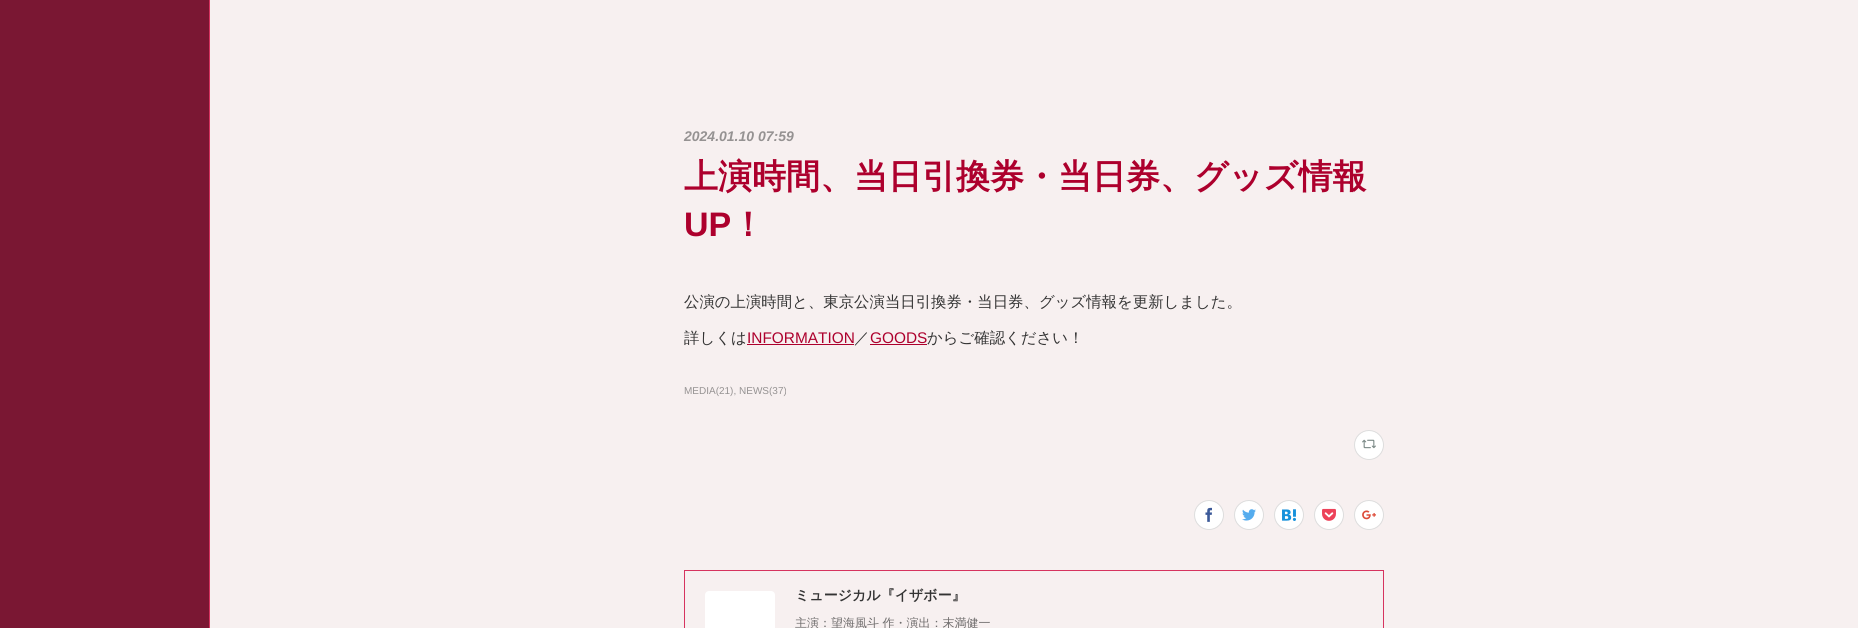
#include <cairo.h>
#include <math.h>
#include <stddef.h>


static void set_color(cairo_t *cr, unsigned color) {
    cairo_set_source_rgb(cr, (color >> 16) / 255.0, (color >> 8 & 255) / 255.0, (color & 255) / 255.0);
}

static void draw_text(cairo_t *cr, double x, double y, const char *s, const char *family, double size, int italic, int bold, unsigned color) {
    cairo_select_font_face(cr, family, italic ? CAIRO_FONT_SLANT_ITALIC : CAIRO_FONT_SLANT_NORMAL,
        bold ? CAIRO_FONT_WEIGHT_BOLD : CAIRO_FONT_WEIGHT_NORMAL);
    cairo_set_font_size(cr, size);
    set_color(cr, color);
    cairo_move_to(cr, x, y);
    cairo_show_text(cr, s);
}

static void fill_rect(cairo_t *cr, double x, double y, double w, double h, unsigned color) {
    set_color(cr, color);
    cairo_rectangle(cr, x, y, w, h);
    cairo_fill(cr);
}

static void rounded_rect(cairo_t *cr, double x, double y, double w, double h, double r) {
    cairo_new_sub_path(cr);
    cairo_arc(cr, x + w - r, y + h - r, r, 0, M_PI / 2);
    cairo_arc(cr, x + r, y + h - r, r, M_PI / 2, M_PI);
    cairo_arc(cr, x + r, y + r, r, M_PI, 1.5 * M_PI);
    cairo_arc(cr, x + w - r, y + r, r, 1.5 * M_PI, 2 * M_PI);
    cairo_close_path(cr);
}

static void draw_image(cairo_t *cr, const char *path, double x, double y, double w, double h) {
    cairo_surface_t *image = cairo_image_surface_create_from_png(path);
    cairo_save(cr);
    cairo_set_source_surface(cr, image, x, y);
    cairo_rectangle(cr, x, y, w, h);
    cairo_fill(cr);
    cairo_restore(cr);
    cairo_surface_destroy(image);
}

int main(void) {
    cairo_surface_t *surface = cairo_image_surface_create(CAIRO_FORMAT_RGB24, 1858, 628);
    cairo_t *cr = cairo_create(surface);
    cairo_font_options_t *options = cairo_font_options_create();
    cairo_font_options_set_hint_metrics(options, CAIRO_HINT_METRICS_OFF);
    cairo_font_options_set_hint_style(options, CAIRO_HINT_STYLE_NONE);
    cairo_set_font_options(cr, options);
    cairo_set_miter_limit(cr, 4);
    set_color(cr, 0xF7F0F0);
    cairo_paint(cr);
    fill_rect(cr, 0, 0, 209, 628, 0x7A1733);
    fill_rect(cr, 209, 0, 1, 628, 0xD6335F);
    draw_text(cr, 684, 141, "2024.01.10 07:59", "Liberation Sans", 14, 1, 1, 0x959292);
    draw_text(cr, 684, 188, "上演時間、当日引換券・当日券、グッズ情報", "WenQuanYi Zen Hei", 34, 0, 1, 0xAD002D);
    draw_text(cr, 684, 236, "UP", "Liberation Sans", 34, 0, 1, 0xAD002D);
    draw_text(cr, 731, 236, "！", "WenQuanYi Zen Hei", 34, 0, 1, 0xAD002D);
    draw_text(cr, 684, 307, "公演の上演時間と、東京公演当日引換券・当日券、グッズ情報を更新しました。", "WenQuanYi Zen Hei Medium", 15.4, 0, 0, 0x333333);
    draw_text(cr, 684, 343, "詳しくは", "WenQuanYi Zen Hei Medium", 15.4, 0, 0, 0x333333);
    draw_text(cr, 747, 343, "INFORMATION", "Liberation Sans", 15.4, 0, 0, 0xAD002D);
    fill_rect(cr, 747, 344, 107, 1, 0xAD002D);
    draw_text(cr, 854, 343, "／", "WenQuanYi Zen Hei Medium", 15.4, 0, 0, 0x333333);
    draw_text(cr, 870, 343, "GOODS", "Liberation Sans", 15.4, 0, 0, 0xAD002D);
    fill_rect(cr, 870, 344, 57, 1, 0xAD002D);
    draw_text(cr, 927, 343, "からご確認ください！", "WenQuanYi Zen Hei Medium", 15.4, 0, 0, 0x333333);
    draw_text(cr, 684, 394, "MEDIA(21), NEWS(37)", "Liberation Sans", 10, 0, 0, 0x959292);
    set_color(cr, 0xFFFFFF);
    cairo_new_path(cr);
    cairo_arc(cr, 1369, 445, 14.5, 0, 2 * M_PI);
    cairo_fill_preserve(cr);
    set_color(cr, 0xDDDDDD);
    cairo_set_line_width(cr, 1);
    cairo_stroke(cr);
    draw_image(cr, "assets/img1.png", 1362, 439, 14, 10);
    set_color(cr, 0xFFFFFF);
    cairo_arc(cr, 1209, 515, 14.5, 0, 2 * M_PI);
    cairo_fill_preserve(cr);
    set_color(cr, 0xDDDDDD);
    cairo_stroke(cr);
    draw_image(cr, "assets/img2.png", 1205, 507, 7, 15);
    set_color(cr, 0xFFFFFF);
    cairo_arc(cr, 1249, 515, 14.5, 0, 2 * M_PI);
    cairo_fill_preserve(cr);
    set_color(cr, 0xDDDDDD);
    cairo_stroke(cr);
    draw_image(cr, "assets/img3.png", 1242, 509, 14, 12);
    set_color(cr, 0xFFFFFF);
    cairo_arc(cr, 1289, 515, 14.5, 0, 2 * M_PI);
    cairo_fill_preserve(cr);
    set_color(cr, 0xDDDDDD);
    cairo_stroke(cr);
    draw_image(cr, "assets/img4.png", 1282, 509, 14, 12);
    set_color(cr, 0xFFFFFF);
    cairo_arc(cr, 1329, 515, 14.5, 0, 2 * M_PI);
    cairo_fill_preserve(cr);
    set_color(cr, 0xDDDDDD);
    cairo_stroke(cr);
    draw_image(cr, "assets/img5.png", 1322, 508, 14, 13);
    set_color(cr, 0xFFFFFF);
    cairo_arc(cr, 1369, 515, 14.5, 0, 2 * M_PI);
    cairo_fill_preserve(cr);
    set_color(cr, 0xDDDDDD);
    cairo_stroke(cr);
    draw_image(cr, "assets/img6.png", 1362, 510, 14, 10);
    cairo_rectangle(cr, 684.5, 570.5, 699, 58);
    set_color(cr, 0xD6335F);
    cairo_stroke(cr);
    set_color(cr, 0xFFFFFF);
    rounded_rect(cr, 705, 591, 70, 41, 4);
    cairo_fill(cr);
    draw_text(cr, 795, 600, "ミュージカル『イザボー』", "WenQuanYi Zen Hei", 14, 0, 1, 0x333333);
    draw_text(cr, 795, 627, "主演：望海風斗 作・演出：末満健一", "WenQuanYi Zen Hei Medium", 12, 0, 0, 0x6E6C6C);
    cairo_surface_write_to_png(surface, "output.png");
    cairo_font_options_destroy(options);
    cairo_destroy(cr);
    cairo_surface_destroy(surface);
    return 0;
}
